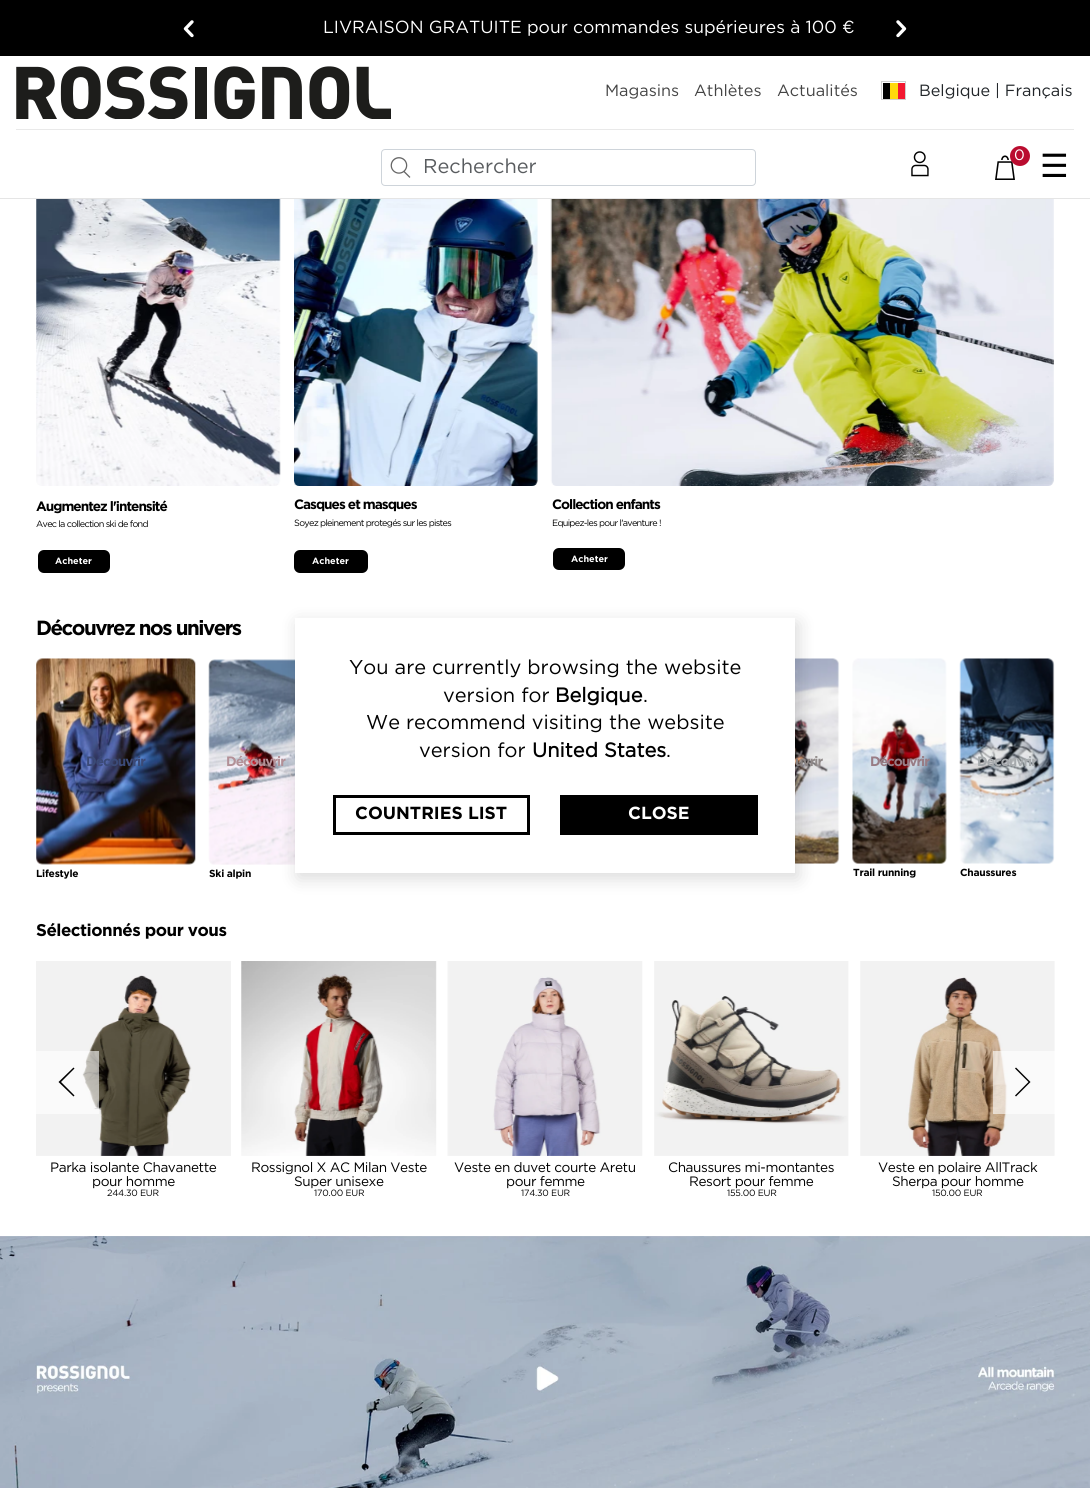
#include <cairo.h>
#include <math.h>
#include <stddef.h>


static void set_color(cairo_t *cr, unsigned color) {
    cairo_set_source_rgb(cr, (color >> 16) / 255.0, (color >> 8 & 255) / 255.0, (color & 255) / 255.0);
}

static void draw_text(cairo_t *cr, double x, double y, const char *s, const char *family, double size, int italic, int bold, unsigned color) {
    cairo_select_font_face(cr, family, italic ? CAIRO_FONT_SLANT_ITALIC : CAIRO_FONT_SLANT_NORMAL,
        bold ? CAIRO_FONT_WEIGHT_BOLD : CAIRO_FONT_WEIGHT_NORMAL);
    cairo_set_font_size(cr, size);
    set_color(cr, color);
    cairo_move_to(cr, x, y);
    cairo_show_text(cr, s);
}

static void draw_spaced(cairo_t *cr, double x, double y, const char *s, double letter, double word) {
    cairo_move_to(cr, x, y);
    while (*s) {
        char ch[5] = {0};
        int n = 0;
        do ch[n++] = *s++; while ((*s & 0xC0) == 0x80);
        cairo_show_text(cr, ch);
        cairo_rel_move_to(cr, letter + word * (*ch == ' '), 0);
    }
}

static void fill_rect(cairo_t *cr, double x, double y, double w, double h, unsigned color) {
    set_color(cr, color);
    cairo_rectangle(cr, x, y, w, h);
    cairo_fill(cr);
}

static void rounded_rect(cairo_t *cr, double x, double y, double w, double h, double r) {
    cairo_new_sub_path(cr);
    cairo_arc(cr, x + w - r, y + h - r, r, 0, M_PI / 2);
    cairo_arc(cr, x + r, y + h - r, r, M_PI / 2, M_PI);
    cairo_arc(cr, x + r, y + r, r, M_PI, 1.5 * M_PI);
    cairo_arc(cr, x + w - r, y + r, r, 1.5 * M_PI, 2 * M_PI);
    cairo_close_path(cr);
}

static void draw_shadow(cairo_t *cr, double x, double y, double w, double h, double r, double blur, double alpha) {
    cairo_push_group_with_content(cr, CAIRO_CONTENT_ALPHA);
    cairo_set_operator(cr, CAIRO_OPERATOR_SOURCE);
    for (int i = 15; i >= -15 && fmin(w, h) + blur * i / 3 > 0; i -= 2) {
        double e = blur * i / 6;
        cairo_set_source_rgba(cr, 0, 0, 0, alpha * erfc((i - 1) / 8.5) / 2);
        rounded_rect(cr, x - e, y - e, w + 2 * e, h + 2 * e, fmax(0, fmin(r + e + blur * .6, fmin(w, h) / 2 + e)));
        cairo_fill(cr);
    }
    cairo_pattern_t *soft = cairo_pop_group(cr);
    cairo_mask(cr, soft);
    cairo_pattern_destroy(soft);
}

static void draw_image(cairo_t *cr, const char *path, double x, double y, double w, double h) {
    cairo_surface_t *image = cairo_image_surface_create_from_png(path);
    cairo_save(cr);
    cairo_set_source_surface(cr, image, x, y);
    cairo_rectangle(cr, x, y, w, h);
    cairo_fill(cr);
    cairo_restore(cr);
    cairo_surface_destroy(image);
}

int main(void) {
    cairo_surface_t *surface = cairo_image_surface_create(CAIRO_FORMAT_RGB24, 1090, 1488);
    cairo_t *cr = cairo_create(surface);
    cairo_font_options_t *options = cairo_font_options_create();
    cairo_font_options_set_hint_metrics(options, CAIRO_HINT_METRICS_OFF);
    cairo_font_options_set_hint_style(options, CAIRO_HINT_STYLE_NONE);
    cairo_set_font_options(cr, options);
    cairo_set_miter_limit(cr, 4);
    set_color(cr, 0xFFFFFF);
    cairo_paint(cr);
    fill_rect(cr, 0, 0, 1090, 56, 0x000000);
    draw_image(cr, "assets/img1.png", 183, 20, 11, 18);
    draw_text(cr, 323, 33, "LIVRAISON GRATUITE pour commandes supérieures à 100 €", "Gotham", 17.5, 0, 0, 0xFFFFFF);
    draw_image(cr, "assets/img2.png", 896, 20, 11, 18);
    fill_rect(cr, 16, 129, 1058, 1, 0xE9E9E9);
    draw_image(cr, "assets/img3.png", 16, 66, 375, 53);
    draw_text(cr, 605, 96, "Magasins", "Gotham", 16.25, 0, 0, 0x444444);
    draw_text(cr, 694, 96, "Athlètes", "Gotham", 16.25, 0, 0, 0x444444);
    draw_text(cr, 777, 96, "Actualités", "Gotham", 16.25, 0, 0, 0x444444);
    fill_rect(cr, 883, 83, 7, 16, 0x000000);
    fill_rect(cr, 890, 83, 8, 16, 0xFFD90C);
    fill_rect(cr, 898, 83, 7, 16, 0xF31830);
    cairo_rectangle(cr, 881.5, 81.5, 24, 18);
    set_color(cr, 0xCFCFCF);
    cairo_set_line_width(cr, 1);
    cairo_stroke(cr);
    draw_text(cr, 919, 96, "Belgique | Français", "Gotham", 16.25, 0, 0, 0x212529);
    rounded_rect(cr, 381.5, 149.5, 374, 36, 3.5);
    set_color(cr, 0xCED4DA);
    cairo_stroke(cr);
    draw_image(cr, "assets/img4.png", 390, 157, 21, 21);
    draw_text(cr, 423, 173, "Rechercher", "Gotham", 20, 0, 0, 0x595C5F);
    draw_image(cr, "assets/img5.png", 911, 151, 18, 26);
    draw_image(cr, "assets/img6.png", 995, 155, 20, 25);
    set_color(cr, 0xBA0C2F);
    cairo_arc(cr, 1020, 156, 10, 0, 2 * M_PI);
    cairo_fill(cr);
    draw_text(cr, 1014, 160, "0", "Gotham", 15, 0, 0, 0xFFFFFF);
    draw_text(cr, 1040, 177, "☰", "DejaVu Sans", 32, 0, 0, 0x000000);
    fill_rect(cr, 0, 198, 1090, 1, 0xE5E5E5);
    draw_image(cr, "assets/img7.png", 36, 199, 245, 287);
    draw_image(cr, "assets/img8.png", 294, 199, 244, 287);
    draw_image(cr, "assets/img9.png", 550, 199, 504, 287);
    cairo_select_font_face(cr, "Gotham", CAIRO_FONT_SLANT_NORMAL, CAIRO_FONT_WEIGHT_BOLD);
    cairo_set_font_size(cr, 13.6);
    set_color(cr, 0x000000);
    draw_spaced(cr, 36, 511, "Augmentez l'intensité", -1, 0);
    draw_spaced(cr, 294, 509, "Casques et masques", -1, 0);
    draw_spaced(cr, 552, 509, "Collection enfants", -1, 0);
    cairo_select_font_face(cr, "Gotham", CAIRO_FONT_SLANT_NORMAL, CAIRO_FONT_WEIGHT_NORMAL);
    cairo_set_font_size(cr, 9.1);
    draw_spaced(cr, 36, 527, "Avec la collection ski de fond", -0.7, 0);
    draw_spaced(cr, 294, 526, "Soyez pleinement protegés sur les pistes", -0.7, 0);
    draw_spaced(cr, 552, 526, "Equipez-les pour l'aventure !", -0.7, 0);
    rounded_rect(cr, 38, 550, 72, 23, 6);
    cairo_fill(cr);
    draw_text(cr, 55, 564, "Acheter", "Gotham", 9.1, 0, 1, 0xFFFFFF);
    set_color(cr, 0x000000);
    rounded_rect(cr, 294, 550, 74, 23, 6);
    cairo_fill(cr);
    draw_text(cr, 312, 564, "Acheter", "Gotham", 9.1, 0, 1, 0xFFFFFF);
    set_color(cr, 0x000000);
    rounded_rect(cr, 553, 548, 72, 22, 6);
    cairo_fill(cr);
    draw_text(cr, 571, 562, "Acheter", "Gotham", 9.1, 0, 1, 0xFFFFFF);
    cairo_set_font_size(cr, 20.5);
    set_color(cr, 0x000000);
    draw_spaced(cr, 36, 635, "Découvrez nos univers", -1.5, 0);
    draw_image(cr, "assets/img10.png", 36, 658, 160, 207);
    draw_image(cr, "assets/img11.png", 208, 659, 87, 206);
    draw_image(cr, "assets/img12.png", 795, 658, 45, 206);
    draw_image(cr, "assets/img13.png", 852, 658, 95, 206);
    draw_image(cr, "assets/img14.png", 959, 658, 96, 206);
    cairo_set_font_size(cr, 13.6);
    set_color(cr, 0x3B4A77);
    draw_spaced(cr, 86, 766, "Découvrir", -1, 0);
    set_color(cr, 0xB39097);
    draw_spaced(cr, 226, 766, "Découvrir", -1, 0);
    set_color(cr, 0x918A89);
    draw_spaced(cr, 795, 766, "uvrir", -1, 0);
    set_color(cr, 0x987C85);
    draw_spaced(cr, 870, 766, "Découvrir", -1, 0);
    set_color(cr, 0xA6AAAD);
    draw_spaced(cr, 977, 766, "Découvrir", -1, 0);
    cairo_set_font_size(cr, 10.25);
    set_color(cr, 0x000000);
    draw_spaced(cr, 36, 877, "Lifestyle", -0.25, 0);
    draw_spaced(cr, 209, 877, "Ski alpin", -0.25, 0);
    draw_spaced(cr, 853, 876, "Trail running", -0.25, 0);
    draw_spaced(cr, 960, 876, "Chaussures", -0.25, 0);
    cairo_set_font_size(cr, 17);
    draw_spaced(cr, 36, 936, "Sélectionnés pour vous", -0.5, 0);
    draw_image(cr, "assets/img15.png", 36, 961, 195, 195);
    cairo_set_source_rgba(cr, 1, 1, 1, 0.6);
    cairo_rectangle(cr, 36, 1051, 63, 63);
    cairo_fill(cr);
    set_color(cr, 0x000000);
    cairo_new_path(cr);
    cairo_move_to(cr, 74.5, 1068.5);
    cairo_line_to(cr, 73.5, 1067.5);
    cairo_line_to(cr, 58.5, 1082);
    cairo_line_to(cr, 73.5, 1096.5);
    cairo_line_to(cr, 74.5, 1095.5);
    cairo_line_to(cr, 61, 1082);
    cairo_close_path(cr);
    cairo_fill(cr);
    draw_image(cr, "assets/img19.png", 860, 961, 195, 195);
    cairo_set_source_rgba(cr, 1, 1, 1, 0.6);
    cairo_rectangle(cr, 993, 1051, 62, 63);
    cairo_fill(cr);
    set_color(cr, 0x000000);
    cairo_new_path(cr);
    cairo_move_to(cr, 1015, 1095.5);
    cairo_line_to(cr, 1016, 1096.5);
    cairo_line_to(cr, 1030.5, 1082);
    cairo_line_to(cr, 1016, 1067.5);
    cairo_line_to(cr, 1015, 1068.5);
    cairo_line_to(cr, 1028.5, 1082);
    cairo_close_path(cr);
    cairo_fill(cr);
    cairo_select_font_face(cr, "Gotham", CAIRO_FONT_SLANT_NORMAL, CAIRO_FONT_WEIGHT_NORMAL);
    cairo_set_font_size(cr, 13.6);
    draw_spaced(cr, 50, 1172, "Parka isolante Chavanette", -0.4, 0);
    draw_spaced(cr, 92, 1186, "pour homme", -0.4, 0);
    cairo_set_font_size(cr, 9.1);
    draw_spaced(cr, 107, 1196, "244.30 EUR", -0.25, 0);
    draw_image(cr, "assets/img16.png", 241, 961, 196, 195);
    cairo_set_font_size(cr, 13.6);
    draw_spaced(cr, 251, 1172, "Rossignol X AC Milan Veste", -0.4, 0);
    draw_spaced(cr, 294, 1186, "Super unisexe", -0.4, 0);
    cairo_set_font_size(cr, 9.1);
    draw_spaced(cr, 314, 1196, "170.00 EUR", -0.25, 0);
    draw_image(cr, "assets/img17.png", 447, 961, 196, 195);
    cairo_set_font_size(cr, 13.6);
    draw_spaced(cr, 454, 1172, "Veste en duvet courte Aretu", -0.4, 0);
    draw_spaced(cr, 506, 1186, "pour femme", -0.4, 0);
    cairo_set_font_size(cr, 9.1);
    draw_spaced(cr, 521, 1196, "174.30 EUR", -0.25, 0);
    draw_image(cr, "assets/img18.png", 654, 961, 195, 195);
    cairo_set_font_size(cr, 13.6);
    draw_spaced(cr, 668, 1172, "Chaussures mi-montantes", -0.4, 0);
    draw_spaced(cr, 689, 1186, "Resort pour femme", -0.4, 0);
    cairo_set_font_size(cr, 9.1);
    draw_spaced(cr, 727, 1196, "155.00 EUR", -0.25, 0);
    cairo_set_font_size(cr, 13.6);
    draw_spaced(cr, 878, 1172, "Veste en polaire AllTrack", -0.4, 0);
    draw_spaced(cr, 892, 1186, "Sherpa pour homme", -0.4, 0);
    cairo_set_font_size(cr, 9.1);
    draw_spaced(cr, 932, 1196, "150.00 EUR", -0.25, 0);
    draw_image(cr, "assets/img20.png", 0, 1236, 1090, 252);
    set_color(cr, 0x000000);
    draw_shadow(cr, 298, 623, 500, 255, 0, 9, 0.15);
    fill_rect(cr, 295, 618, 500, 255, 0xFFFFFF);
    draw_text(cr, 349, 674, "You are currently browsing the website", "Gotham", 20, 0, 0, 0x000000);
    draw_text(cr, 443, 702, "version for", "Gotham", 20, 0, 0, 0x000000);
    draw_text(cr, 555, 702, "Belgique", "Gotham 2", 20, 0, 1, 0x000000);
    draw_text(cr, 643, 702, ".", "Gotham", 20, 0, 0, 0x000000);
    draw_text(cr, 366, 729, "We recommend visiting the website", "Gotham", 20, 0, 0, 0x000000);
    draw_text(cr, 419, 757, "version for", "Gotham", 20, 0, 0, 0x000000);
    draw_text(cr, 532, 757, "United States", "Gotham 2", 20, 0, 1, 0x000000);
    draw_text(cr, 666, 757, ".", "Gotham", 20, 0, 0, 0x000000);
    cairo_rectangle(cr, 334.5, 796.5, 194, 37);
    cairo_set_line_width(cr, 3);
    cairo_stroke(cr);
    draw_text(cr, 355, 819, "COUNTRIES LIST", "Gotham", 17.5, 0, 1, 0x000000);
    fill_rect(cr, 560, 795, 198, 40, 0x000000);
    draw_text(cr, 628, 819, "CLOSE", "Gotham", 17.5, 0, 1, 0xFFFFFF);
    cairo_surface_write_to_png(surface, "output.png");
    cairo_font_options_destroy(options);
    cairo_destroy(cr);
    cairo_surface_destroy(surface);
    return 0;
}
